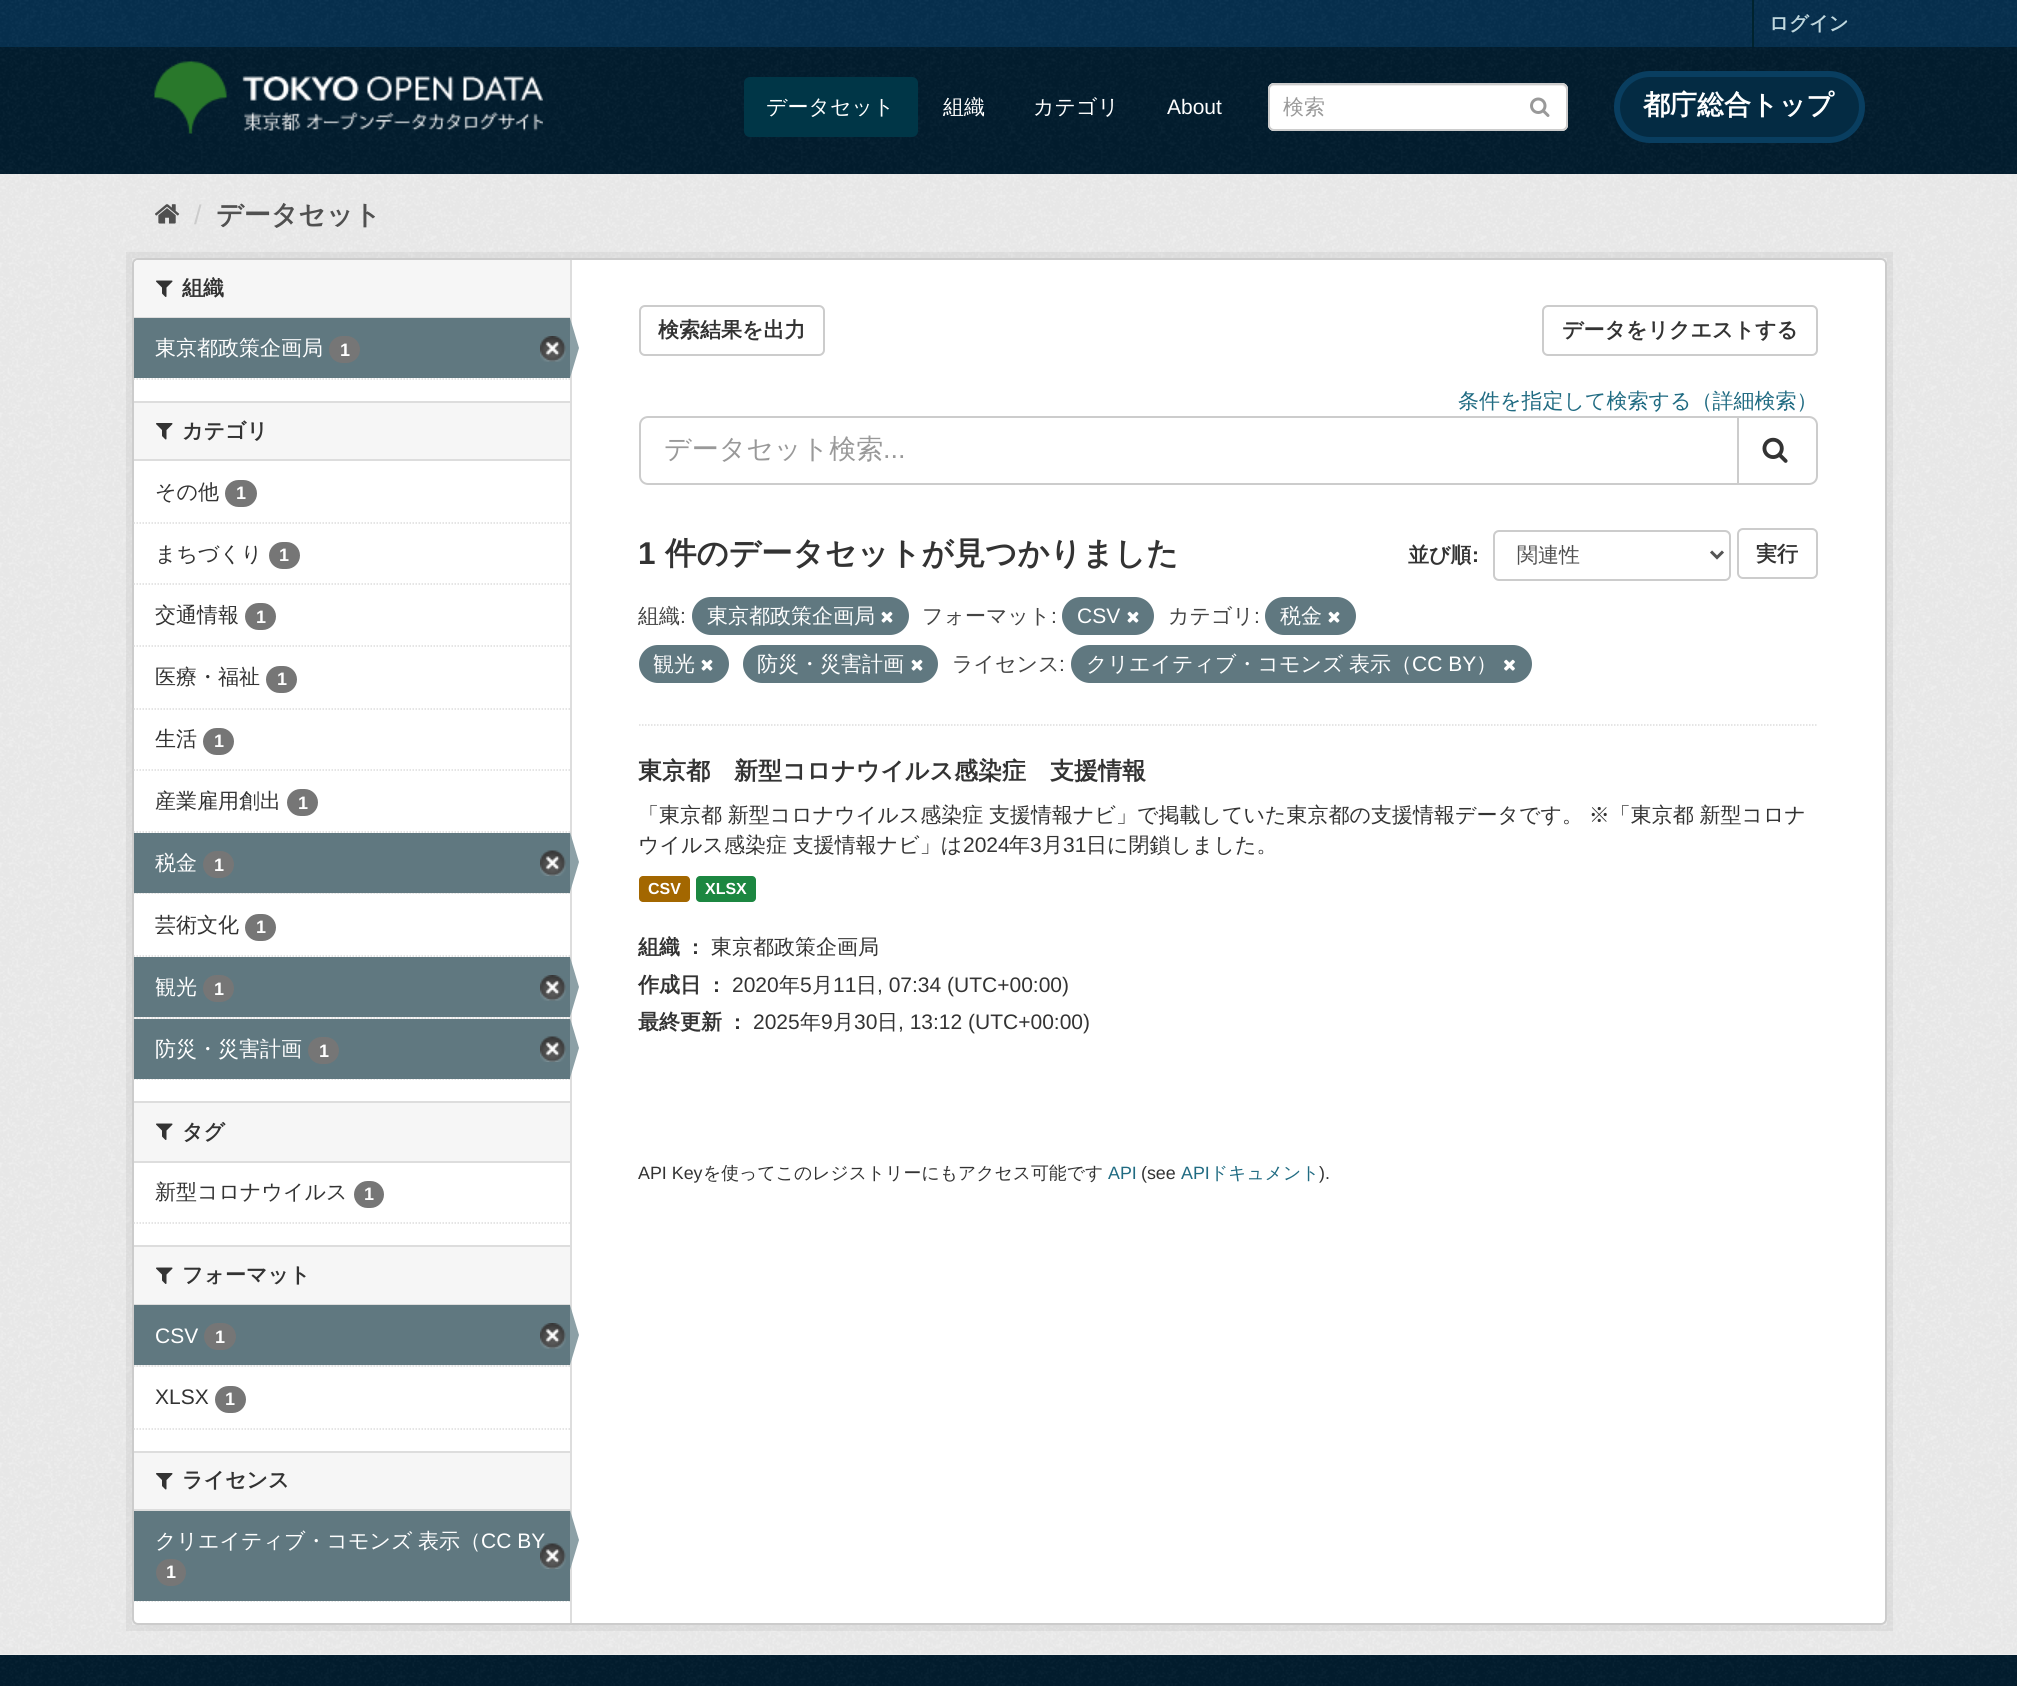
#include <cairo.h>
#include <math.h>
#include <stddef.h>


static void set_color(cairo_t *cr, unsigned color) {
    cairo_set_source_rgb(cr, (color >> 16) / 255.0, (color >> 8 & 255) / 255.0, (color & 255) / 255.0);
}

static void draw_text(cairo_t *cr, double x, double y, const char *s, const char *family, double size, int italic, int bold, unsigned color) {
    cairo_select_font_face(cr, family, italic ? CAIRO_FONT_SLANT_ITALIC : CAIRO_FONT_SLANT_NORMAL,
        bold ? CAIRO_FONT_WEIGHT_BOLD : CAIRO_FONT_WEIGHT_NORMAL);
    cairo_set_font_size(cr, size);
    set_color(cr, color);
    cairo_move_to(cr, x, y);
    cairo_show_text(cr, s);
}

static void draw_spaced(cairo_t *cr, double x, double y, const char *s, double letter, double word) {
    cairo_move_to(cr, x, y);
    while (*s) {
        char ch[5] = {0};
        int n = 0;
        do ch[n++] = *s++; while ((*s & 0xC0) == 0x80);
        cairo_show_text(cr, ch);
        cairo_rel_move_to(cr, letter + word * (*ch == ' '), 0);
    }
}

static void fill_rect(cairo_t *cr, double x, double y, double w, double h, unsigned color) {
    set_color(cr, color);
    cairo_rectangle(cr, x, y, w, h);
    cairo_fill(cr);
}

static void rounded_rect(cairo_t *cr, double x, double y, double w, double h, double r) {
    cairo_new_sub_path(cr);
    cairo_arc(cr, x + w - r, y + h - r, r, 0, M_PI / 2);
    cairo_arc(cr, x + r, y + h - r, r, M_PI / 2, M_PI);
    cairo_arc(cr, x + r, y + r, r, M_PI, 1.5 * M_PI);
    cairo_arc(cr, x + w - r, y + r, r, 1.5 * M_PI, 2 * M_PI);
    cairo_close_path(cr);
}

static void draw_image(cairo_t *cr, const char *path, double x, double y, double w, double h) {
    cairo_surface_t *image = cairo_image_surface_create_from_png(path);
    cairo_save(cr);
    cairo_set_source_surface(cr, image, x, y);
    cairo_rectangle(cr, x, y, w, h);
    cairo_fill(cr);
    cairo_restore(cr);
    cairo_surface_destroy(image);
}

int main(void) {
    cairo_surface_t *surface = cairo_image_surface_create(CAIRO_FORMAT_RGB24, 2017, 1686);
    cairo_t *cr = cairo_create(surface);
    cairo_font_options_t *options = cairo_font_options_create();
    cairo_font_options_set_hint_metrics(options, CAIRO_HINT_METRICS_OFF);
    cairo_font_options_set_hint_style(options, CAIRO_HINT_STYLE_NONE);
    cairo_set_font_options(cr, options);
    cairo_set_miter_limit(cr, 4);
    set_color(cr, 0x06304E);
    cairo_paint(cr);
    draw_image(cr, "assets/img1.png", 0, 0, 2017, 46);
    fill_rect(cr, 1752, 0, 2, 47, 0x00232E);
    draw_text(cr, 1769, 30, "ログイン", "WenQuanYi Zen Hei", 19.5, 0, 1, 0xBFD7DE);
    fill_rect(cr, 0, 47, 2017, 127, 0x021D2E);
    draw_image(cr, "assets/img2.png", 0, 47, 2017, 127);
    draw_image(cr, "assets/img3.png", 154, 61, 389, 73);
    set_color(cr, 0x003647);
    rounded_rect(cr, 744, 77, 174, 60, 6);
    cairo_fill(cr);
    draw_text(cr, 766, 114, "データセット", "WenQuanYi Zen Hei Medium", 21, 0, 0, 0xFFFFFF);
    draw_text(cr, 943, 114, "組織", "WenQuanYi Zen Hei Medium", 21, 0, 0, 0xFFFFFF);
    draw_text(cr, 1033, 114, "カテゴリ", "WenQuanYi Zen Hei Medium", 21, 0, 0, 0xFFFFFF);
    draw_text(cr, 1167, 114, "About", "Liberation Sans", 21, 0, 0, 0xFFFFFF);
    rounded_rect(cr, 1268, 83, 300, 48, 6);
    cairo_fill(cr);
    set_color(cr, 0xECECEC);
    cairo_new_path(cr);
    cairo_move_to(cr, 1274, 86);
    cairo_line_to(cr, 1562, 86);
    cairo_curve_to(cr, 1564, 86, 1566, 88, 1566, 90);
    cairo_line_to(cr, 1566, 89);
    cairo_curve_to(cr, 1566, 86, 1564, 84, 1561, 84);
    cairo_line_to(cr, 1274, 84);
    cairo_curve_to(cr, 1271, 84, 1269, 86, 1269, 89);
    cairo_line_to(cr, 1269, 90);
    cairo_curve_to(cr, 1269, 88, 1271, 86, 1274, 86);
    cairo_close_path(cr);
    cairo_fill(cr);
    rounded_rect(cr, 1269, 84, 298, 46, 5);
    set_color(cr, 0xCCCCCC);
    cairo_stroke(cr);
    draw_text(cr, 1283, 114, "検索", "WenQuanYi Zen Hei Medium", 21, 0, 0, 0x999999);
    draw_image(cr, "assets/img4.png", 1530, 97, 20, 20);
    set_color(cr, 0x042B43);
    rounded_rect(cr, 1617, 74, 245, 66, 33);
    cairo_fill_preserve(cr);
    set_color(cr, 0x093E60);
    cairo_set_line_width(cr, 6);
    cairo_stroke(cr);
    draw_text(cr, 1643, 114, "都庁総合トップ", "WenQuanYi Zen Hei", 27, 0, 1, 0xFFFFFF);
    fill_rect(cr, 0, 174, 2017, 1481, 0xEEEEEE);
    draw_image(cr, "assets/img5.png", 0, 174, 2017, 1480);
    draw_image(cr, "assets/img6.png", 155, 204, 25, 20);
    draw_text(cr, 194, 224, "/", "Liberation Sans", 27, 0, 0, 0xCCCCCC);
    draw_text(cr, 216, 224, "データセット", "WenQuanYi Zen Hei", 27, 0, 1, 0x505050);
    cairo_rectangle(cr, 129, 255, 1761, 1373);
    cairo_set_source_rgba(cr, 0, 0, 0, 0.05);
    cairo_stroke(cr);
    set_color(cr, 0xFFFFFF);
    rounded_rect(cr, 133, 259, 1753, 1365, 5);
    cairo_fill_preserve(cr);
    set_color(cr, 0xCCCCCC);
    cairo_set_line_width(cr, 2);
    cairo_stroke(cr);
    set_color(cr, 0xF6F6F6);
    cairo_new_path(cr);
    cairo_move_to(cr, 139, 260);
    cairo_line_to(cr, 570, 260);
    cairo_line_to(cr, 570, 318);
    cairo_line_to(cr, 134, 318);
    cairo_line_to(cr, 134, 265);
    cairo_curve_to(cr, 134, 262, 136, 260, 139, 260);
    cairo_close_path(cr);
    cairo_fill(cr);
    fill_rect(cr, 134, 317, 436, 1, 0xDDDDDD);
    draw_image(cr, "assets/img7.png", 156, 280, 17, 17);
    draw_text(cr, 182, 295, "組織", "WenQuanYi Zen Hei", 21, 0, 1, 0x333333);
    fill_rect(cr, 134, 318, 436, 60, 0x607880);
    draw_text(cr, 155, 355, "東京都政策企画局", "WenQuanYi Zen Hei Medium", 21, 0, 0, 0xFFFFFF);
    set_color(cr, 0x767676);
    rounded_rect(cr, 329, 336, 31, 27, 13.5);
    cairo_fill(cr);
    draw_text(cr, 340, 356, "1", "Liberation Sans", 18, 0, 1, 0xFFFFFF);
    draw_image(cr, "assets/img8.png", 540, 336, 26, 26);
    fill_rect(cr, 570, 260, 2, 1363, 0xDDDDDD);
    set_color(cr, 0x8CA0A6);
    cairo_new_path(cr);
    cairo_move_to(cr, 570, 378);
    cairo_line_to(cr, 570, 318);
    cairo_line_to(cr, 579, 348);
    cairo_close_path(cr);
    cairo_fill(cr);
    cairo_new_path(cr);
    cairo_move_to(cr, 133.5, 379);
    cairo_line_to(cr, 570, 379);
    set_color(cr, 0xDDDDDD);
    cairo_set_line_width(cr, 1.5);
    cairo_set_dash(cr, (double[]){1.5, 1.5}, 2, 0);
    cairo_stroke(cr);
    fill_rect(cr, 134, 403, 436, 56, 0xF6F6F6);
    fill_rect(cr, 134, 401, 436, 2, 0xDDDDDD);
    fill_rect(cr, 134, 459, 436, 2, 0xDDDDDD);
    draw_image(cr, "assets/img9.png", 156, 423, 17, 17);
    draw_text(cr, 182, 438, "カテゴリ", "WenQuanYi Zen Hei", 21, 0, 1, 0x333333);
    cairo_new_path(cr);
    cairo_move_to(cr, 133.5, 523);
    cairo_line_to(cr, 570, 523);
    set_color(cr, 0xDDDDDD);
    cairo_stroke(cr);
    draw_text(cr, 155, 499, "その他", "WenQuanYi Zen Hei Medium", 21, 0, 0, 0x333333);
    set_color(cr, 0x767676);
    rounded_rect(cr, 225, 480, 32, 27, 13.5);
    cairo_fill(cr);
    draw_text(cr, 236, 499, "1", "Liberation Sans", 18, 0, 1, 0xFFFFFF);
    cairo_new_path(cr);
    cairo_move_to(cr, 133.5, 584);
    cairo_line_to(cr, 570, 584);
    set_color(cr, 0xDDDDDD);
    cairo_stroke(cr);
    draw_text(cr, 155, 561, "まちづくり", "WenQuanYi Zen Hei Medium", 21, 0, 0, 0x333333);
    set_color(cr, 0x767676);
    rounded_rect(cr, 269, 542, 31, 27, 13.5);
    cairo_fill(cr);
    draw_text(cr, 279, 561, "1", "Liberation Sans", 18, 0, 1, 0xFFFFFF);
    cairo_new_path(cr);
    cairo_move_to(cr, 133.5, 646);
    cairo_line_to(cr, 570, 646);
    set_color(cr, 0xDDDDDD);
    cairo_stroke(cr);
    draw_text(cr, 155, 622, "交通情報", "WenQuanYi Zen Hei Medium", 21, 0, 0, 0x333333);
    set_color(cr, 0x767676);
    rounded_rect(cr, 245, 603, 31, 27, 13.5);
    cairo_fill(cr);
    draw_text(cr, 256, 623, "1", "Liberation Sans", 18, 0, 1, 0xFFFFFF);
    cairo_new_path(cr);
    cairo_move_to(cr, 133.5, 709);
    cairo_line_to(cr, 570, 709);
    set_color(cr, 0xDDDDDD);
    cairo_stroke(cr);
    draw_text(cr, 155, 684, "医療・福祉", "WenQuanYi Zen Hei Medium", 21, 0, 0, 0x333333);
    set_color(cr, 0x767676);
    rounded_rect(cr, 266, 666, 31, 27, 13.5);
    cairo_fill(cr);
    draw_text(cr, 277, 685, "1", "Liberation Sans", 18, 0, 1, 0xFFFFFF);
    cairo_new_path(cr);
    cairo_move_to(cr, 133.5, 770);
    cairo_line_to(cr, 570, 770);
    set_color(cr, 0xDDDDDD);
    cairo_stroke(cr);
    draw_text(cr, 155, 746, "生活", "WenQuanYi Zen Hei Medium", 21, 0, 0, 0x333333);
    set_color(cr, 0x767676);
    rounded_rect(cr, 203, 728, 31, 27, 13.5);
    cairo_fill(cr);
    draw_text(cr, 214, 747, "1", "Liberation Sans", 18, 0, 1, 0xFFFFFF);
    cairo_new_path(cr);
    cairo_move_to(cr, 133.5, 832);
    cairo_line_to(cr, 570, 832);
    set_color(cr, 0xDDDDDD);
    cairo_stroke(cr);
    draw_text(cr, 155, 808, "産業雇用創出", "WenQuanYi Zen Hei Medium", 21, 0, 0, 0x333333);
    set_color(cr, 0x767676);
    rounded_rect(cr, 287, 789, 31, 27, 13.5);
    cairo_fill(cr);
    draw_text(cr, 298, 809, "1", "Liberation Sans", 18, 0, 1, 0xFFFFFF);
    fill_rect(cr, 134, 893, 436, 1, 0xF6F6F6);
    cairo_new_path(cr);
    cairo_move_to(cr, 133.5, 893);
    cairo_line_to(cr, 570, 893);
    set_color(cr, 0xDDDDDD);
    cairo_stroke(cr);
    fill_rect(cr, 134, 833, 436, 60, 0x607880);
    draw_text(cr, 155, 870, "税金", "WenQuanYi Zen Hei Medium", 21, 0, 0, 0xFFFFFF);
    set_color(cr, 0x767676);
    rounded_rect(cr, 203, 851, 31, 27, 13.5);
    cairo_fill(cr);
    draw_text(cr, 214, 871, "1", "Liberation Sans", 18, 0, 1, 0xFFFFFF);
    draw_image(cr, "assets/img10.png", 540, 850, 26, 26);
    set_color(cr, 0x8CA0A6);
    cairo_new_path(cr);
    cairo_move_to(cr, 570, 892);
    cairo_line_to(cr, 570, 832);
    cairo_line_to(cr, 579, 862);
    cairo_close_path(cr);
    cairo_fill(cr);
    cairo_new_path(cr);
    cairo_move_to(cr, 133.5, 956);
    cairo_line_to(cr, 570, 956);
    set_color(cr, 0xDDDDDD);
    cairo_stroke(cr);
    draw_text(cr, 155, 932, "芸術文化", "WenQuanYi Zen Hei Medium", 21, 0, 0, 0x333333);
    set_color(cr, 0x767676);
    rounded_rect(cr, 245, 914, 31, 27, 13.5);
    cairo_fill(cr);
    draw_text(cr, 256, 933, "1", "Liberation Sans", 18, 0, 1, 0xFFFFFF);
    fill_rect(cr, 134, 1017, 436, 2, 0xF6F6F6);
    cairo_new_path(cr);
    cairo_move_to(cr, 133.5, 1018);
    cairo_line_to(cr, 570, 1018);
    set_color(cr, 0xDDDDDD);
    cairo_stroke(cr);
    fill_rect(cr, 134, 957, 436, 60, 0x607880);
    draw_text(cr, 155, 994, "観光", "WenQuanYi Zen Hei Medium", 21, 0, 0, 0xFFFFFF);
    set_color(cr, 0x767676);
    rounded_rect(cr, 203, 975, 31, 27, 13.5);
    cairo_fill(cr);
    draw_text(cr, 214, 995, "1", "Liberation Sans", 18, 0, 1, 0xFFFFFF);
    draw_image(cr, "assets/img8.png", 540, 975, 26, 26);
    set_color(cr, 0x8CA0A6);
    cairo_new_path(cr);
    cairo_move_to(cr, 570, 1017);
    cairo_line_to(cr, 570, 957);
    cairo_line_to(cr, 579, 987);
    cairo_close_path(cr);
    cairo_fill(cr);
    cairo_new_path(cr);
    cairo_move_to(cr, 133.5, 1079);
    cairo_line_to(cr, 570, 1079);
    set_color(cr, 0xDDDDDD);
    cairo_stroke(cr);
    fill_rect(cr, 134, 1019, 436, 60, 0x607880);
    draw_text(cr, 155, 1056, "防災・災害計画", "WenQuanYi Zen Hei Medium", 21, 0, 0, 0xFFFFFF);
    set_color(cr, 0x767676);
    rounded_rect(cr, 308, 1037, 31, 27, 13.5);
    cairo_fill(cr);
    draw_text(cr, 319, 1057, "1", "Liberation Sans", 18, 0, 1, 0xFFFFFF);
    draw_image(cr, "assets/img10.png", 540, 1036, 26, 26);
    set_color(cr, 0x8CA0A6);
    cairo_new_path(cr);
    cairo_move_to(cr, 570, 1078);
    cairo_line_to(cr, 570, 1018);
    cairo_line_to(cr, 579, 1048);
    cairo_close_path(cr);
    cairo_fill(cr);
    fill_rect(cr, 134, 1103, 436, 58, 0xF6F6F6);
    fill_rect(cr, 134, 1101, 436, 2, 0xDDDDDD);
    fill_rect(cr, 134, 1161, 436, 2, 0xDDDDDD);
    draw_image(cr, "assets/img7.png", 156, 1123, 17, 17);
    draw_text(cr, 182, 1139, "タグ", "WenQuanYi Zen Hei", 21, 0, 1, 0x333333);
    draw_text(cr, 155, 1199, "新型コロナウイルス", "WenQuanYi Zen Hei Medium", 21, 0, 0, 0x333333);
    set_color(cr, 0x767676);
    rounded_rect(cr, 354, 1181, 30, 27, 13.5);
    cairo_fill(cr);
    draw_text(cr, 364, 1200, "1", "Liberation Sans", 18, 0, 1, 0xFFFFFF);
    cairo_new_path(cr);
    cairo_move_to(cr, 133.5, 1223);
    cairo_line_to(cr, 570, 1223);
    set_color(cr, 0xDDDDDD);
    cairo_stroke(cr);
    fill_rect(cr, 134, 1247, 436, 57, 0xF6F6F6);
    fill_rect(cr, 134, 1245, 436, 2, 0xDDDDDD);
    fill_rect(cr, 134, 1304, 436, 1, 0xDDDDDD);
    draw_image(cr, "assets/img7.png", 156, 1267, 17, 17);
    draw_text(cr, 182, 1282, "フォーマット", "WenQuanYi Zen Hei", 21, 0, 1, 0x333333);
    fill_rect(cr, 134, 1365, 436, 2, 0xF6F6F6);
    cairo_new_path(cr);
    cairo_move_to(cr, 133.5, 1366);
    cairo_line_to(cr, 570, 1366);
    set_color(cr, 0xDDDDDD);
    cairo_stroke(cr);
    fill_rect(cr, 134, 1305, 436, 60, 0x607880);
    draw_text(cr, 155, 1343, "CSV", "Liberation Sans", 21, 0, 0, 0xFFFFFF);
    set_color(cr, 0x767676);
    rounded_rect(cr, 204, 1323, 32, 27, 13.5);
    cairo_fill(cr);
    draw_text(cr, 215, 1343, "1", "Liberation Sans", 18, 0, 1, 0xFFFFFF);
    draw_image(cr, "assets/img8.png", 540, 1323, 26, 26);
    set_color(cr, 0x8CA0A6);
    cairo_new_path(cr);
    cairo_move_to(cr, 570, 1365);
    cairo_line_to(cr, 570, 1305);
    cairo_line_to(cr, 579, 1335);
    cairo_close_path(cr);
    cairo_fill(cr);
    draw_text(cr, 155, 1404, "XLSX", "Liberation Sans", 21, 0, 0, 0x333333);
    set_color(cr, 0x767676);
    rounded_rect(cr, 215, 1386, 31, 27, 13.5);
    cairo_fill(cr);
    draw_text(cr, 225, 1405, "1", "Liberation Sans", 18, 0, 1, 0xFFFFFF);
    cairo_new_path(cr);
    cairo_move_to(cr, 133.5, 1429);
    cairo_line_to(cr, 570, 1429);
    set_color(cr, 0xDDDDDD);
    cairo_stroke(cr);
    fill_rect(cr, 134, 1453, 436, 56, 0xF6F6F6);
    fill_rect(cr, 134, 1451, 436, 2, 0xDDDDDD);
    fill_rect(cr, 134, 1509, 436, 2, 0xDDDDDD);
    draw_image(cr, "assets/img9.png", 156, 1473, 17, 17);
    draw_text(cr, 182, 1487, "ライセンス", "WenQuanYi Zen Hei", 21, 0, 1, 0x333333);
    cairo_new_path(cr);
    cairo_move_to(cr, 133.5, 1601);
    cairo_line_to(cr, 570, 1601);
    set_color(cr, 0xDDDDDD);
    cairo_stroke(cr);
    fill_rect(cr, 134, 1511, 436, 90, 0x607880);
    draw_text(cr, 155, 1548, "クリエイティブ・コモンズ", "WenQuanYi Zen Hei Medium", 21, 0, 0, 0xFFFFFF);
    draw_text(cr, 418, 1548, "表示（", "WenQuanYi Zen Hei Medium", 21, 0, 0, 0xFFFFFF);
    draw_text(cr, 481, 1548, "CC BY", "Liberation Sans", 21, 0, 0, 0xFFFFFF);
    set_color(cr, 0x8CA0A6);
    cairo_new_path(cr);
    cairo_move_to(cr, 570, 1570);
    cairo_line_to(cr, 570, 1510);
    cairo_line_to(cr, 579, 1540);
    cairo_close_path(cr);
    cairo_fill(cr);
    draw_image(cr, "assets/img11.png", 540, 1543, 26, 26);
    set_color(cr, 0x767676);
    rounded_rect(cr, 156, 1559, 30, 27, 13.5);
    cairo_fill(cr);
    draw_text(cr, 166, 1578, "1", "Liberation Sans", 18, 0, 1, 0xFFFFFF);
    rounded_rect(cr, 640, 306, 184, 49, 5);
    set_color(cr, 0xCCCCCC);
    cairo_set_line_width(cr, 2);
    cairo_set_dash(cr, NULL, 0, 0);
    cairo_stroke(cr);
    draw_text(cr, 658, 337, "検索結果を出力", "WenQuanYi Zen Hei", 21, 0, 1, 0x333333);
    rounded_rect(cr, 1543, 306, 274, 49, 5);
    set_color(cr, 0xCCCCCC);
    cairo_stroke(cr);
    draw_text(cr, 1562, 337, "データをリクエストする", "WenQuanYi Zen Hei", 21, 0, 1, 0x333333);
    cairo_new_path(cr);
    cairo_move_to(cr, 639, 725);
    cairo_line_to(cr, 1818, 725);
    set_color(cr, 0xDDDDDD);
    cairo_set_line_width(cr, 1.5);
    cairo_set_dash(cr, (double[]){1.5, 1.5}, 2, 0);
    cairo_stroke(cr);
    draw_text(cr, 1458, 408, "条件を指定して検索する（詳細検索）", "WenQuanYi Zen Hei Medium", 21, 0, 0, 0x206B82);
    cairo_new_path(cr);
    cairo_move_to(cr, 648, 417);
    cairo_line_to(cr, 1738, 417);
    cairo_line_to(cr, 1738, 484);
    cairo_line_to(cr, 648, 484);
    cairo_curve_to(cr, 643.5, 484, 640, 480.5, 640, 476);
    cairo_line_to(cr, 640, 425);
    cairo_curve_to(cr, 640, 420.5, 643.5, 417, 648, 417);
    cairo_close_path(cr);
    set_color(cr, 0xCCCCCC);
    cairo_set_line_width(cr, 2);
    cairo_set_dash(cr, NULL, 0, 0);
    cairo_stroke(cr);
    draw_text(cr, 664, 458, "データセット検索", "WenQuanYi Zen Hei Medium", 27, 0, 0, 0x999999);
    draw_text(cr, 883, 458, "...", "Liberation Sans", 27, 0, 0, 0x999999);
    set_color(cr, 0xFFFFFF);
    cairo_new_path(cr);
    cairo_move_to(cr, 1738, 417);
    cairo_line_to(cr, 1809, 417);
    cairo_curve_to(cr, 1813.5, 417, 1817, 420.5, 1817, 425);
    cairo_line_to(cr, 1817, 476);
    cairo_curve_to(cr, 1817, 480.5, 1813.5, 484, 1809, 484);
    cairo_line_to(cr, 1738, 484);
    cairo_close_path(cr);
    cairo_fill_preserve(cr);
    set_color(cr, 0xCCCCCC);
    cairo_stroke(cr);
    draw_image(cr, "assets/img12.png", 1762, 437, 26, 26);
    draw_text(cr, 638, 564, "1", "Liberation Sans", 31.5, 0, 1, 0x333333);
    draw_text(cr, 665, 564, "件のデータセットが見つかりました", "WenQuanYi Zen Hei", 31.5, 0, 1, 0x333333);
    draw_text(cr, 1408, 562, "並び順", "WenQuanYi Zen Hei", 21, 0, 1, 0x333333);
    draw_text(cr, 1472, 562, ":", "Liberation Sans", 21, 0, 1, 0x333333);
    set_color(cr, 0xECECEC);
    cairo_new_path(cr);
    cairo_move_to(cr, 1498, 532);
    cairo_line_to(cr, 1725, 532);
    cairo_curve_to(cr, 1727, 532, 1730, 535, 1730, 537);
    cairo_line_to(cr, 1730, 536);
    cairo_curve_to(cr, 1730, 533, 1728, 531, 1725, 531);
    cairo_line_to(cr, 1499, 531);
    cairo_curve_to(cr, 1496, 531, 1494, 533, 1494, 536);
    cairo_line_to(cr, 1494, 537);
    cairo_curve_to(cr, 1494, 535, 1496, 532, 1498, 532);
    cairo_close_path(cr);
    cairo_fill(cr);
    rounded_rect(cr, 1494, 531, 236, 49, 5);
    set_color(cr, 0xCCCCCC);
    cairo_stroke(cr);
    cairo_new_path(cr);
    cairo_move_to(cr, 1711, 551.5);
    cairo_line_to(cr, 1717, 557.5);
    cairo_line_to(cr, 1723, 551.5);
    set_color(cr, 0x555555);
    cairo_set_line_width(cr, 3);
    cairo_stroke(cr);
    draw_text(cr, 1517, 562, "関連性", "WenQuanYi Zen Hei Medium", 21, 0, 0, 0x505050);
    rounded_rect(cr, 1738, 529, 79, 49, 5);
    set_color(cr, 0xCCCCCC);
    cairo_set_line_width(cr, 2);
    cairo_stroke(cr);
    draw_text(cr, 1756, 561, "実行", "WenQuanYi Zen Hei", 21, 0, 1, 0x333333);
    draw_text(cr, 638, 623, "組織", "WenQuanYi Zen Hei Medium", 21, 0, 0, 0x444444);
    draw_text(cr, 680, 623, ":", "Liberation Sans", 21, 0, 0, 0x444444);
    set_color(cr, 0x607880);
    rounded_rect(cr, 692, 597, 217, 38, 19);
    cairo_fill(cr);
    draw_text(cr, 707, 623, "東京都政策企画局", "WenQuanYi Zen Hei Medium", 21, 0, 0, 0xFFFFFF);
    draw_image(cr, "assets/img13.png", 881, 611, 12, 12);
    draw_text(cr, 922, 623, "フォーマット", "WenQuanYi Zen Hei Medium", 21, 0, 0, 0x444444);
    draw_text(cr, 1051, 623, ":", "Liberation Sans", 21, 0, 0, 0x444444);
    set_color(cr, 0x607880);
    rounded_rect(cr, 1062, 597, 92, 38, 19);
    cairo_fill(cr);
    draw_text(cr, 1077, 623, "CSV", "Liberation Sans", 21, 0, 0, 0xFFFFFF);
    draw_image(cr, "assets/img13.png", 1127, 611, 12, 12);
    draw_text(cr, 1168, 623, "カテゴリ", "WenQuanYi Zen Hei Medium", 21, 0, 0, 0x444444);
    draw_text(cr, 1254, 623, ":", "Liberation Sans", 21, 0, 0, 0x444444);
    set_color(cr, 0x607880);
    rounded_rect(cr, 1265, 597, 91, 38, 19);
    cairo_fill(cr);
    draw_text(cr, 1280, 623, "税金", "WenQuanYi Zen Hei Medium", 21, 0, 0, 0xFFFFFF);
    draw_image(cr, "assets/img13.png", 1328, 611, 12, 12);
    set_color(cr, 0x607880);
    rounded_rect(cr, 639, 645, 90, 38, 19);
    cairo_fill(cr);
    draw_text(cr, 653, 671, "観光", "WenQuanYi Zen Hei Medium", 21, 0, 0, 0xFFFFFF);
    draw_image(cr, "assets/img13.png", 701, 659, 12, 12);
    set_color(cr, 0x607880);
    rounded_rect(cr, 743, 645, 195, 38, 19);
    cairo_fill(cr);
    draw_text(cr, 757, 671, "防災・災害計画", "WenQuanYi Zen Hei Medium", 21, 0, 0, 0xFFFFFF);
    draw_image(cr, "assets/img13.png", 911, 659, 12, 12);
    draw_text(cr, 952, 671, "ライセンス", "WenQuanYi Zen Hei Medium", 21, 0, 0, 0x444444);
    draw_text(cr, 1059, 671, ":", "Liberation Sans", 21, 0, 0, 0x444444);
    set_color(cr, 0x607880);
    rounded_rect(cr, 1071, 645, 461, 38, 19);
    cairo_fill(cr);
    draw_text(cr, 1086, 671, "クリエイティブ・コモンズ", "WenQuanYi Zen Hei Medium", 21, 0, 0, 0xFFFFFF);
    draw_text(cr, 1349, 671, "表示（", "WenQuanYi Zen Hei Medium", 21, 0, 0, 0xFFFFFF);
    draw_text(cr, 1412, 671, "CC BY", "Liberation Sans", 21, 0, 0, 0xFFFFFF);
    draw_text(cr, 1476, 671, "）", "WenQuanYi Zen Hei Medium", 21, 0, 0, 0xFFFFFF);
    draw_image(cr, "assets/img14.png", 1504, 659, 11, 12);
    draw_text(cr, 638, 779, "東京都　新型コロナウイルス感染症　支援情報", "WenQuanYi Zen Hei", 24, 0, 1, 0x333333);
    cairo_select_font_face(cr, "WenQuanYi Zen Hei Medium", CAIRO_FONT_SLANT_NORMAL, CAIRO_FONT_WEIGHT_NORMAL);
    cairo_set_font_size(cr, 21);
    draw_spaced(cr, 638, 822, "「東京都 新型コロナウイルス感染症 支援情報ナビ」で掲載していた東京都の支援情報データです。 ※「東京都 新型コロナ", 0, -0.5);
    draw_spaced(cr, 638, 852, "ウイルス感染症 支援情報ナビ」は", 0, -0.5);
    draw_text(cr, 963, 852, "2024", "Liberation Sans", 21, 0, 0, 0x333333);
    draw_text(cr, 1009, 852, "年", "WenQuanYi Zen Hei Medium", 21, 0, 0, 0x333333);
    draw_text(cr, 1030, 852, "3", "Liberation Sans", 21, 0, 0, 0x333333);
    draw_text(cr, 1042, 852, "月", "WenQuanYi Zen Hei Medium", 21, 0, 0, 0x333333);
    draw_text(cr, 1063, 852, "31", "Liberation Sans", 21, 0, 0, 0x333333);
    draw_text(cr, 1086, 852, "日に閉鎖しました。", "WenQuanYi Zen Hei Medium", 21, 0, 0, 0x333333);
    set_color(cr, 0xA36700);
    rounded_rect(cr, 639, 876, 51, 26, 4);
    cairo_fill(cr);
    draw_text(cr, 648, 894, "CSV", "Liberation Sans", 16, 0, 1, 0xFFFFFF);
    set_color(cr, 0x1C8741);
    rounded_rect(cr, 696, 876, 60, 26, 4);
    cairo_fill(cr);
    draw_text(cr, 705, 894, "XLSX", "Liberation Sans", 16, 0, 1, 0xFFFFFF);
    draw_text(cr, 638, 954, "組織", "WenQuanYi Zen Hei", 21, 0, 1, 0x333333);
    draw_text(cr, 692, 954, ":", "Liberation Sans", 21, 0, 1, 0x333333);
    draw_text(cr, 711, 954, "東京都政策企画局", "WenQuanYi Zen Hei Medium", 21, 0, 0, 0x333333);
    draw_text(cr, 638, 992, "作成日", "WenQuanYi Zen Hei", 21, 0, 1, 0x333333);
    draw_text(cr, 713, 992, ":", "Liberation Sans", 21, 0, 1, 0x333333);
    draw_text(cr, 732, 992, "2020", "Liberation Sans", 21, 0, 0, 0x333333);
    draw_text(cr, 779, 992, "年", "WenQuanYi Zen Hei Medium", 21, 0, 0, 0x333333);
    draw_text(cr, 800, 992, "5", "Liberation Sans", 21, 0, 0, 0x333333);
    draw_text(cr, 812, 992, "月", "WenQuanYi Zen Hei Medium", 21, 0, 0, 0x333333);
    draw_text(cr, 833, 992, "11", "Liberation Sans", 21, 0, 0, 0x333333);
    draw_text(cr, 856, 992, "日", "WenQuanYi Zen Hei Medium", 21, 0, 0, 0x333333);
    draw_text(cr, 877, 992, ", 07:34 (UTC+00:00)", "Liberation Sans", 21, 0, 0, 0x333333);
    draw_text(cr, 638, 1029, "最終更新", "WenQuanYi Zen Hei", 21, 0, 1, 0x333333);
    draw_text(cr, 734, 1029, ":", "Liberation Sans", 21, 0, 1, 0x333333);
    draw_text(cr, 753, 1029, "2025", "Liberation Sans", 21, 0, 0, 0x333333);
    draw_text(cr, 800, 1029, "年", "WenQuanYi Zen Hei Medium", 21, 0, 0, 0x333333);
    draw_text(cr, 821, 1029, "9", "Liberation Sans", 21, 0, 0, 0x333333);
    draw_text(cr, 833, 1029, "月", "WenQuanYi Zen Hei Medium", 21, 0, 0, 0x333333);
    draw_text(cr, 854, 1029, "30", "Liberation Sans", 21, 0, 0, 0x333333);
    draw_text(cr, 877, 1029, "日", "WenQuanYi Zen Hei Medium", 21, 0, 0, 0x333333);
    draw_text(cr, 898, 1029, ", 13:12 (UTC+00:00)", "Liberation Sans", 21, 0, 0, 0x333333);
    draw_text(cr, 638, 1179, "API Key", "Liberation Sans", 17.85, 0, 0, 0x333333);
    draw_text(cr, 703, 1179, "を使ってこのレジストリーにもアクセス可能です", "WenQuanYi Zen Hei Medium", 17.85, 0, 0, 0x333333);
    draw_text(cr, 1108, 1179, "API", "Liberation Sans", 17.85, 0, 0, 0x206B82);
    draw_text(cr, 1141, 1179, "(see", "Liberation Sans", 17.85, 0, 0, 0x333333);
    draw_text(cr, 1181, 1179, "API", "Liberation Sans", 17.85, 0, 0, 0x206B82);
    draw_text(cr, 1210, 1179, "ドキュメント", "WenQuanYi Zen Hei Medium", 17.85, 0, 0, 0x206B82);
    draw_text(cr, 1319, 1179, ").", "Liberation Sans", 17.85, 0, 0, 0x333333);
    fill_rect(cr, 0, 1655, 2017, 31, 0x021D2E);
    draw_image(cr, "assets/img15.png", 0, 1655, 2017, 31);
    cairo_surface_write_to_png(surface, "output.png");
    cairo_font_options_destroy(options);
    cairo_destroy(cr);
    cairo_surface_destroy(surface);
    return 0;
}
